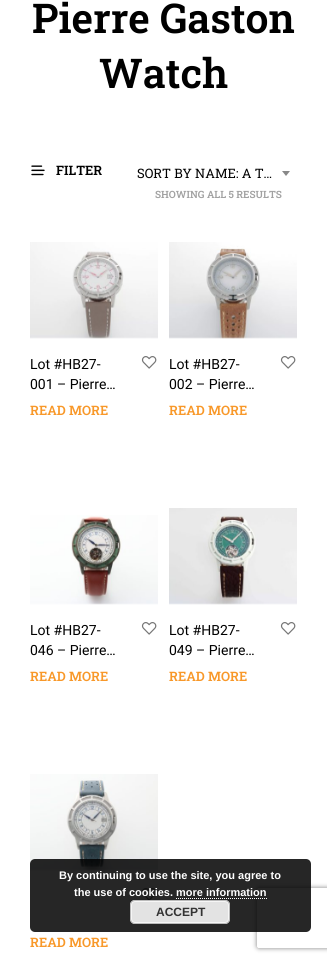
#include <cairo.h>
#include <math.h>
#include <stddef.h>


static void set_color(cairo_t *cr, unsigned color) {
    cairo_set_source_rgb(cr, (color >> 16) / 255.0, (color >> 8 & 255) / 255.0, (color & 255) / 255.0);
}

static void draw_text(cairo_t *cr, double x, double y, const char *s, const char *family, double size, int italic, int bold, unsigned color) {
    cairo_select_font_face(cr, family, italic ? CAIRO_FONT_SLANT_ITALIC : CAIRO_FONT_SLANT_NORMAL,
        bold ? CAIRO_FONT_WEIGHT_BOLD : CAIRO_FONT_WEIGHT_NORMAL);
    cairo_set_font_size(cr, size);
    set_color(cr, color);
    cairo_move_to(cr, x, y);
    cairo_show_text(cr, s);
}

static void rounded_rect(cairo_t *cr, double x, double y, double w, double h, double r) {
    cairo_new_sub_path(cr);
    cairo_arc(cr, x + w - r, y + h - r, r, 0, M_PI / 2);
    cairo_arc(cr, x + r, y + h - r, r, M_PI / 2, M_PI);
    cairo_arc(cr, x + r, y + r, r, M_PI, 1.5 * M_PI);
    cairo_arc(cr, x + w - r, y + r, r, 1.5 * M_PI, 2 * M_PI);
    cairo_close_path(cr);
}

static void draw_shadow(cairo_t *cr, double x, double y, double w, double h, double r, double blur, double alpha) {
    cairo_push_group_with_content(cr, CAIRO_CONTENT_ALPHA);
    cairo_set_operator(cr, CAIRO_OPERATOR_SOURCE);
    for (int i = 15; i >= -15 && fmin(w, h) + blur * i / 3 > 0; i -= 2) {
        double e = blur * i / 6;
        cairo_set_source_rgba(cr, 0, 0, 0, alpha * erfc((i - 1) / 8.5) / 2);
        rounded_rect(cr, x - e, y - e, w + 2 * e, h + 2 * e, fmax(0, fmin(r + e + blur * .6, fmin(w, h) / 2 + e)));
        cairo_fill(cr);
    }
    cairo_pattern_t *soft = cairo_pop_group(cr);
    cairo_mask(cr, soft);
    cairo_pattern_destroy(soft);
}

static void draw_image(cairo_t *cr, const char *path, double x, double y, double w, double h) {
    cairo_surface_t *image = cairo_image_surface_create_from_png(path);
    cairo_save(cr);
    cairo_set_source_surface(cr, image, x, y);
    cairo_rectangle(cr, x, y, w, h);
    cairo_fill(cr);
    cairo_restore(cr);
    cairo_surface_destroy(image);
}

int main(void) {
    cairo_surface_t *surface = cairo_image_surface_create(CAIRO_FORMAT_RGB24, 327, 962);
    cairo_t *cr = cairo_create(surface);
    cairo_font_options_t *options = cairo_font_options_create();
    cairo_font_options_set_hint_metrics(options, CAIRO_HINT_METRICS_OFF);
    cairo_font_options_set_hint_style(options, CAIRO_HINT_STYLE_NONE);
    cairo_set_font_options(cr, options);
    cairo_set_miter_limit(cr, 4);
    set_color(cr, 0xFFFFFF);
    cairo_paint(cr);
    draw_text(cr, 32, 33, "Pierre Gaston", "Roboto Slab SemiBold", 41, 0, 0, 0x000000);
    draw_text(cr, 99, 88, "Watch", "Roboto Slab SemiBold", 41, 0, 0, 0x000000);
    draw_image(cr, "assets/img1.png", 31, 165, 14, 11);
    draw_text(cr, 56, 175, "FILTER", "Roboto Slab SemiBold", 13, 0, 0, 0x000000);
    draw_text(cr, 137, 178, "SORT BY NAME: A T…", "Roboto Slab", 13, 0, 0, 0x000000);
    set_color(cr, 0x888888);
    cairo_new_path(cr);
    cairo_move_to(cr, 282, 171);
    cairo_line_to(cr, 290, 171);
    cairo_line_to(cr, 286, 176);
    cairo_close_path(cr);
    cairo_fill(cr);
    draw_text(cr, 155, 198, "SHOWING ALL 5 RESULTS", "Roboto Slab SemiBold", 10, 0, 0, 0xA1A1A1);
    draw_image(cr, "assets/img2.png", 30, 242, 128, 97);
    draw_image(cr, "assets/img3.png", 141, 356, 16, 13);
    draw_text(cr, 30, 369, "Lot #HB27-", "Roboto", 14, 0, 0, 0x000000);
    draw_text(cr, 30, 389, "001 – Pierre…", "Roboto", 14, 0, 0, 0x000000);
    draw_text(cr, 30, 415, "READ MORE", "Roboto Slab SemiBold", 13, 0, 0, 0xF89829);
    draw_image(cr, "assets/img4.png", 169, 242, 128, 97);
    draw_image(cr, "assets/img3.png", 280, 356, 16, 13);
    draw_text(cr, 169, 369, "Lot #HB27-", "Roboto", 14, 0, 0, 0x000000);
    draw_text(cr, 169, 389, "002 – Pierre…", "Roboto", 14, 0, 0, 0x000000);
    draw_text(cr, 169, 415, "READ MORE", "Roboto Slab SemiBold", 13, 0, 0, 0xF89829);
    draw_image(cr, "assets/img5.png", 30, 515, 128, 90);
    draw_image(cr, "assets/img3.png", 141, 622, 16, 13);
    draw_text(cr, 30, 635, "Lot #HB27-", "Roboto", 14, 0, 0, 0x000000);
    draw_text(cr, 30, 655, "046 – Pierre…", "Roboto", 14, 0, 0, 0x000000);
    draw_text(cr, 30, 681, "READ MORE", "Roboto Slab SemiBold", 13, 0, 0, 0xF89829);
    draw_image(cr, "assets/img6.png", 169, 508, 128, 97);
    draw_image(cr, "assets/img3.png", 280, 622, 16, 13);
    draw_text(cr, 169, 635, "Lot #HB27-", "Roboto", 14, 0, 0, 0x000000);
    draw_text(cr, 169, 655, "049 – Pierre…", "Roboto", 14, 0, 0, 0x000000);
    draw_text(cr, 169, 681, "READ MORE", "Roboto Slab SemiBold", 13, 0, 0, 0xF89829);
    draw_image(cr, "assets/img7.png", 30, 774, 128, 97);
    draw_image(cr, "assets/img8.png", 141, 888, 16, 12);
    draw_text(cr, 30, 947, "READ MORE", "Roboto Slab SemiBold", 13, 0, 0, 0xF89829);
    cairo_save(cr);
    cairo_set_fill_rule(cr, CAIRO_FILL_RULE_EVEN_ODD);
    cairo_new_path(cr);
    cairo_move_to(cr, 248, 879);
    cairo_line_to(cr, 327, 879);
    cairo_line_to(cr, 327, 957);
    cairo_line_to(cr, 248, 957);
    cairo_close_path(cr);
    cairo_move_to(cr, 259, 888);
    cairo_line_to(cr, 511, 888);
    cairo_curve_to(cr, 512, 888, 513, 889, 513, 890);
    cairo_line_to(cr, 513, 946);
    cairo_curve_to(cr, 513, 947, 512, 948, 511, 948);
    cairo_line_to(cr, 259, 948);
    cairo_curve_to(cr, 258, 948, 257, 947, 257, 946);
    cairo_line_to(cr, 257, 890);
    cairo_curve_to(cr, 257, 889, 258, 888, 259, 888);
    cairo_close_path(cr);
    cairo_clip(cr);
    set_color(cr, 0x808080);
    draw_shadow(cr, 257, 888, 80, 60, 2, 2.5, 1);
    cairo_restore(cr);
    cairo_set_source_rgba(cr, 0, 0, 0, 0.85);
    rounded_rect(cr, 30, 859, 281, 73, 5);
    cairo_fill(cr);
    draw_text(cr, 59, 879, "By continuing to use the site, you agree to", "Liberation Sans", 11, 0, 1, 0xFFFFFF);
    draw_text(cr, 74, 896, "the use of cookies. more information", "Liberation Sans", 11, 0, 1, 0xFFFFFF);
    cairo_new_path(cr);
    cairo_move_to(cr, 176, 898.5);
    cairo_line_to(cr, 267, 898.5);
    cairo_set_line_width(cr, 1);
    cairo_set_dash(cr, (double[]){1, 1}, 2, 0);
    cairo_stroke(cr);
    set_color(cr, 0xE3E3E3);
    rounded_rect(cr, 130, 900, 100, 24, 5);
    cairo_fill(cr);
    rounded_rect(cr, 131.5, 901.5, 97, 21, 3.5);
    set_color(cr, 0xF6F6F6);
    cairo_set_dash(cr, NULL, 0, 0);
    cairo_stroke(cr);
    rounded_rect(cr, 130.5, 900.5, 99, 23, 4.5);
    set_color(cr, 0xBBBBBB);
    cairo_stroke(cr);
    draw_text(cr, 156, 916, "ACCEPT", "Liberation Sans", 12, 0, 1, 0x333333);
    cairo_surface_write_to_png(surface, "output.png");
    cairo_font_options_destroy(options);
    cairo_destroy(cr);
    cairo_surface_destroy(surface);
    return 0;
}
